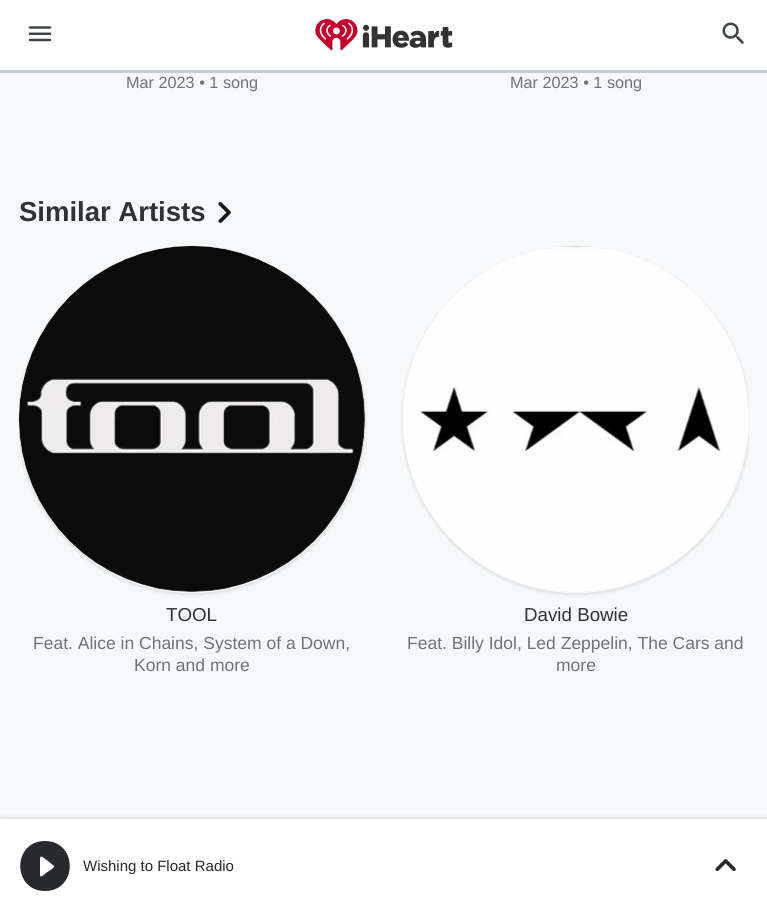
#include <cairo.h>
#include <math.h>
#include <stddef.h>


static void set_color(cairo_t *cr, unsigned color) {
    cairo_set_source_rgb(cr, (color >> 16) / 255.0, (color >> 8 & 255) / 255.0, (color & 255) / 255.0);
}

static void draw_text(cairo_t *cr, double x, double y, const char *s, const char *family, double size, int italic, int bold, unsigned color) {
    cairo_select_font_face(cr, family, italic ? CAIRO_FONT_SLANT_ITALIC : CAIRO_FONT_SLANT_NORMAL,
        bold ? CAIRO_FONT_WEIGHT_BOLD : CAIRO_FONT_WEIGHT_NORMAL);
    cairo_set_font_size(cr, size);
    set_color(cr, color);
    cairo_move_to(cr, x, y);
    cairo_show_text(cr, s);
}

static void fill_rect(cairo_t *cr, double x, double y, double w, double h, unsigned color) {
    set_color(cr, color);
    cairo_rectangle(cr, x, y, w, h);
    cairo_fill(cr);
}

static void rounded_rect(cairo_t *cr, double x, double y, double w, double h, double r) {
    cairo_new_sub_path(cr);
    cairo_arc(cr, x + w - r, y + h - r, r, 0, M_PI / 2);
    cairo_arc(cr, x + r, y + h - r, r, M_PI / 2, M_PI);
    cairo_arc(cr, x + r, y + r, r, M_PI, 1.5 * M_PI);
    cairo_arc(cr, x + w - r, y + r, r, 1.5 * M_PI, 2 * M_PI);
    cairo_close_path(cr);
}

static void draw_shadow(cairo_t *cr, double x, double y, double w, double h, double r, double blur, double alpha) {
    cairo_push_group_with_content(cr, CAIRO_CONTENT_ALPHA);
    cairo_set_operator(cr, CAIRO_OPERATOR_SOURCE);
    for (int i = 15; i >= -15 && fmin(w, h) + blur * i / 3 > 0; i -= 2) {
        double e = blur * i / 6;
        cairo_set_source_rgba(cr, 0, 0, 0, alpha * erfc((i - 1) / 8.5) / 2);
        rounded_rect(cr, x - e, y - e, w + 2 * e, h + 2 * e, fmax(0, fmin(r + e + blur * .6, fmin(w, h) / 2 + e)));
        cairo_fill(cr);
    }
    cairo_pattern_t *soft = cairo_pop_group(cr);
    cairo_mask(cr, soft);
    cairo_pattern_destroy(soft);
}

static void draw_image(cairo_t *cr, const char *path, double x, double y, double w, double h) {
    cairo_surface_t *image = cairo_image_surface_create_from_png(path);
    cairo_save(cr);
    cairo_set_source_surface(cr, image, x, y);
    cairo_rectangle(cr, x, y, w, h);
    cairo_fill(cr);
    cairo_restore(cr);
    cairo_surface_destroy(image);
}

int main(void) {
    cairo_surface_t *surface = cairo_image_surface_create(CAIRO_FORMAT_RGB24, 767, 912);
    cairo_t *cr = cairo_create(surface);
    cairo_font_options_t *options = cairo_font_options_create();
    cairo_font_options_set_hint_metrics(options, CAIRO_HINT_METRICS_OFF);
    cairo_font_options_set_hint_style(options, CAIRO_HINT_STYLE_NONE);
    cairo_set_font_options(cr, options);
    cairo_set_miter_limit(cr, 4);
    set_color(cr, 0xF6F8F9);
    cairo_paint(cr);
    fill_rect(cr, 0, 0, 767, 70, 0xFFFFFF);
    fill_rect(cr, 0, 70, 767, 3, 0xC5CDD2);
    draw_image(cr, "assets/img1.png", 28, 26, 24, 16);
    draw_image(cr, "assets/img2.png", 315, 19, 138, 32);
    draw_image(cr, "assets/img3.png", 722, 22, 22, 22);
    draw_text(cr, 126, 88, "Mar 2023 • 1 song", "Liberation Sans", 16.25, 0, 0, 0x717277);
    draw_text(cr, 510, 88, "Mar 2023 • 1 song", "Liberation Sans", 16.25, 0, 0, 0x717277);
    draw_text(cr, 19, 221, "Similar Artists", "Liberation Sans", 27.5, 0, 1, 0x2F3133);
    draw_image(cr, "assets/img4.png", 218, 202, 13, 21);
    cairo_save(cr);
    cairo_rectangle(cr, 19, 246, 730, 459);
    cairo_clip(cr);
    cairo_set_fill_rule(cr, CAIRO_FILL_RULE_EVEN_ODD);
    cairo_new_path(cr);
    cairo_move_to(cr, 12, 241);
    cairo_line_to(cr, 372, 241);
    cairo_line_to(cr, 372, 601);
    cairo_line_to(cr, 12, 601);
    cairo_close_path(cr);
    cairo_move_to(cr, 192, 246);
    cairo_curve_to(cr, 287.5, 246, 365, 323.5, 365, 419);
    cairo_line_to(cr, 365, 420);
    cairo_curve_to(cr, 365, 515.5, 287.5, 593, 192, 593);
    cairo_curve_to(cr, 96.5, 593, 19, 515.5, 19, 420);
    cairo_line_to(cr, 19, 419);
    cairo_curve_to(cr, 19, 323.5, 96.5, 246, 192, 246);
    cairo_close_path(cr);
    cairo_clip(cr);
    set_color(cr, 0x000000);
    draw_shadow(cr, 19, 248, 346, 346, 173, 2, 0.15);
    cairo_restore(cr);
    draw_image(cr, "assets/img5.png", 18, 245, 347, 347);
    draw_text(cr, 166, 621, "TOOL", "Liberation Sans", 18.75, 0, 0, 0x2F3133);
    draw_text(cr, 33, 649, "Feat. Alice in Chains, System of a Down,", "Liberation Sans", 17.5, 0, 0, 0x717277);
    draw_text(cr, 134, 671, "Korn and more", "Liberation Sans", 17.5, 0, 0, 0x717277);
    cairo_save(cr);
    cairo_rectangle(cr, 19, 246, 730, 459);
    cairo_clip(cr);
    cairo_set_fill_rule(cr, CAIRO_FILL_RULE_EVEN_ODD);
    cairo_new_path(cr);
    cairo_move_to(cr, 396, 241);
    cairo_line_to(cr, 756, 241);
    cairo_line_to(cr, 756, 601);
    cairo_line_to(cr, 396, 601);
    cairo_close_path(cr);
    cairo_move_to(cr, 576, 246);
    cairo_curve_to(cr, 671.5, 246, 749, 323.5, 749, 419);
    cairo_line_to(cr, 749, 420);
    cairo_curve_to(cr, 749, 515.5, 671.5, 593, 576, 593);
    cairo_curve_to(cr, 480.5, 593, 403, 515.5, 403, 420);
    cairo_line_to(cr, 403, 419);
    cairo_curve_to(cr, 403, 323.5, 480.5, 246, 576, 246);
    cairo_close_path(cr);
    cairo_clip(cr);
    set_color(cr, 0x000000);
    draw_shadow(cr, 403, 248, 346, 346, 173, 2, 0.15);
    cairo_restore(cr);
    draw_image(cr, "assets/img6.png", 403, 246, 346, 346);
    draw_text(cr, 524, 621, "David Bowie", "Liberation Sans", 18.75, 0, 0, 0x2F3133);
    draw_text(cr, 407, 649, "Feat. Billy Idol, Led Zeppelin, The Cars and", "Liberation Sans", 17.5, 0, 0, 0x717277);
    draw_text(cr, 556, 671, "more", "Liberation Sans", 17.5, 0, 0, 0x717277);
    set_color(cr, 0x000000);
    draw_shadow(cr, 0, 818, 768, 93, 0, 2, 0.15);
    fill_rect(cr, 0, 819, 767, 93, 0xFFFFFF);
    set_color(cr, 0x27292D);
    cairo_new_path(cr);
    cairo_move_to(cr, 45, 841);
    cairo_curve_to(cr, 12, 841, 12, 891, 45, 891);
    cairo_curve_to(cr, 78, 891, 78, 841, 45, 841);
    cairo_close_path(cr);
    cairo_move_to(cr, 40, 875);
    cairo_line_to(cr, 40, 860);
    cairo_curve_to(cr, 40, 853, 43, 858, 48, 861);
    cairo_line_to(cr, 54, 866);
    cairo_curve_to(cr, 55, 868, 47, 872, 46, 873);
    cairo_curve_to(cr, 46, 873, 40, 879, 40, 875);
    cairo_close_path(cr);
    cairo_fill(cr);
    draw_text(cr, 83, 871, "Wishing to Float Radio", "Liberation Sans", 15, 0, 0, 0x27292D);
    draw_image(cr, "assets/img7.png", 715, 859, 21, 13);
    cairo_surface_write_to_png(surface, "output.png");
    cairo_font_options_destroy(options);
    cairo_destroy(cr);
    cairo_surface_destroy(surface);
    return 0;
}
